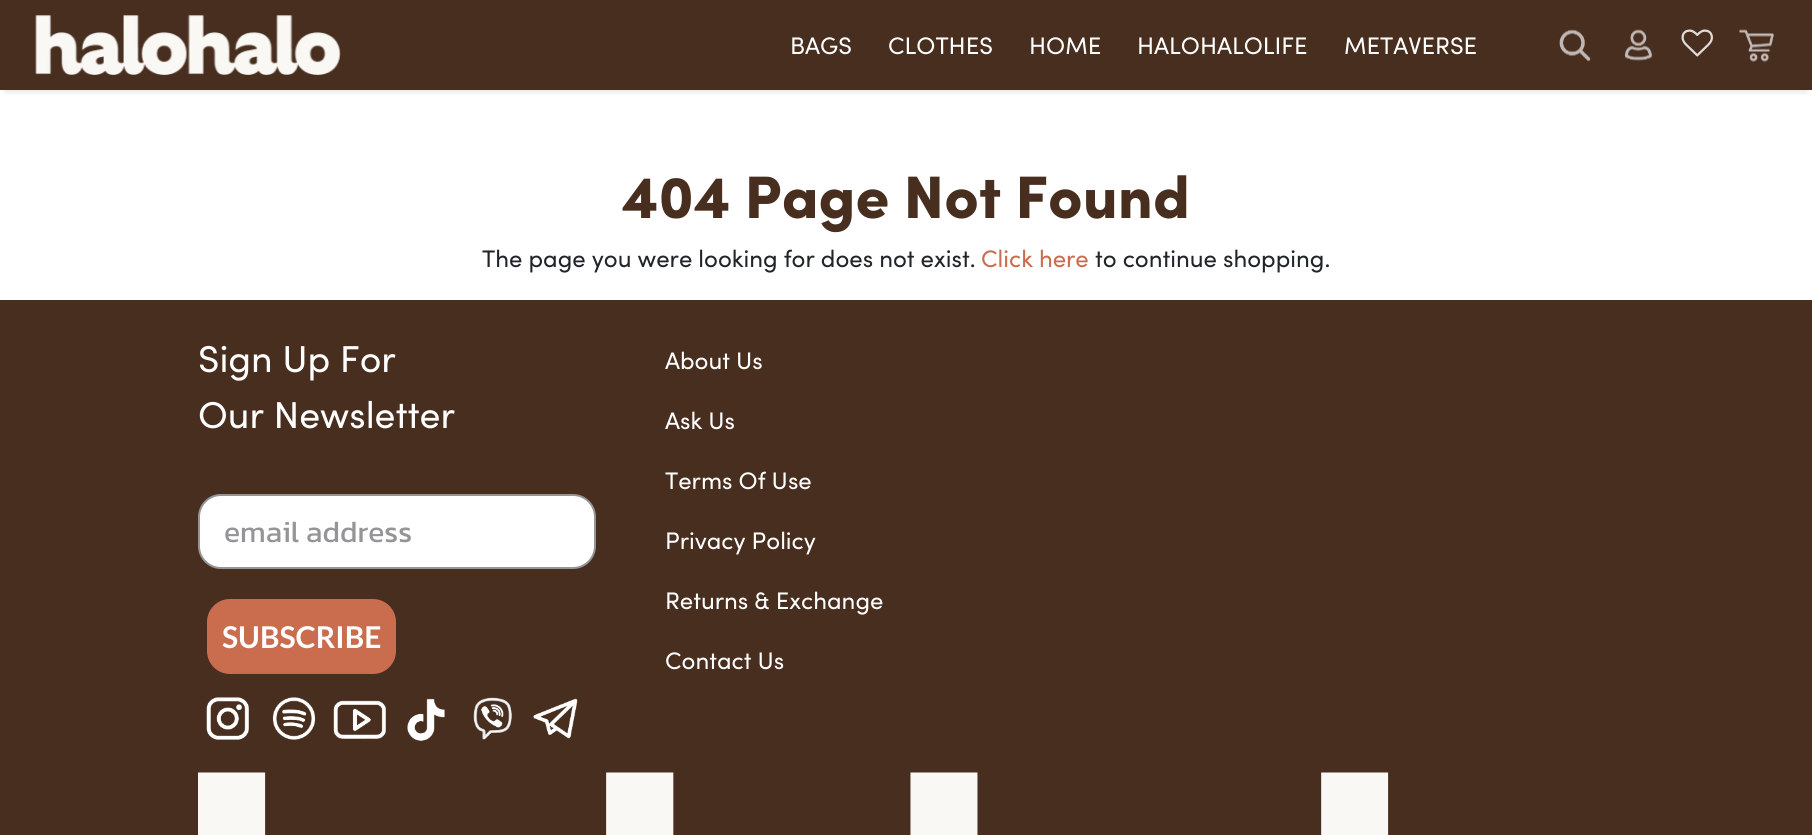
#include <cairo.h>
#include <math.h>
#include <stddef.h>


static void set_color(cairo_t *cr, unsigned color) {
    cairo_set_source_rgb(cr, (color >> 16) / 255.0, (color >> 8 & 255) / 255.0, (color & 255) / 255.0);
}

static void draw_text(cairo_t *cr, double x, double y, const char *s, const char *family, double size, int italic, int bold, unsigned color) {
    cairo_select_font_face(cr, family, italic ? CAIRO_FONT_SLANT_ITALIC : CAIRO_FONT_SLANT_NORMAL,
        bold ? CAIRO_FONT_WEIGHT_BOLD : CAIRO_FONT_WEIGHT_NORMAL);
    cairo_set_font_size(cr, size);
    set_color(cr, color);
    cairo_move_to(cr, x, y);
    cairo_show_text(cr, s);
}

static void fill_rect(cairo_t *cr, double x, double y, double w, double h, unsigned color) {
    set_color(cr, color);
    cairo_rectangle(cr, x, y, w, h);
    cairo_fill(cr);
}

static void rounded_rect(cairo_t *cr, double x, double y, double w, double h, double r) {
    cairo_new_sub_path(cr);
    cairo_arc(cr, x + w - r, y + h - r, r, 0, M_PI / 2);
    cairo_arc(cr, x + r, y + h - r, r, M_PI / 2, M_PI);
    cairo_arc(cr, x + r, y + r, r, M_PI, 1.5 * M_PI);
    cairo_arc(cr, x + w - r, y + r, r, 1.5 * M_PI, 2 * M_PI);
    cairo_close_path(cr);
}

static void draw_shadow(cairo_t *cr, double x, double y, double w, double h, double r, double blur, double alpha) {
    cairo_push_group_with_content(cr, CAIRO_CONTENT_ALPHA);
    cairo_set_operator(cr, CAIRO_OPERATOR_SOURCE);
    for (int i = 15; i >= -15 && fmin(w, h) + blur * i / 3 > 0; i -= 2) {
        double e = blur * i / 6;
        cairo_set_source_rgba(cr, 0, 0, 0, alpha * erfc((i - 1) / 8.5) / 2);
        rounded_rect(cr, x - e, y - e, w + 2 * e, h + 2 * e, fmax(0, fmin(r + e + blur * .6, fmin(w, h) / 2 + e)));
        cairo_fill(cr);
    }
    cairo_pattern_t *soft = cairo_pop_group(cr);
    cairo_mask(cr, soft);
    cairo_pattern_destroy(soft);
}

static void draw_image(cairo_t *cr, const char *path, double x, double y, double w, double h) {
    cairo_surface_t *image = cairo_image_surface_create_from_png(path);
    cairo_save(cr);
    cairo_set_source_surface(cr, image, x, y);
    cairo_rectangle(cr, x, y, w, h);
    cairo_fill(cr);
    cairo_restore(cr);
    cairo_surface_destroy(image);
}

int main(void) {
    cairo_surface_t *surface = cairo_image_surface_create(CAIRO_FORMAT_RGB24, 1812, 835);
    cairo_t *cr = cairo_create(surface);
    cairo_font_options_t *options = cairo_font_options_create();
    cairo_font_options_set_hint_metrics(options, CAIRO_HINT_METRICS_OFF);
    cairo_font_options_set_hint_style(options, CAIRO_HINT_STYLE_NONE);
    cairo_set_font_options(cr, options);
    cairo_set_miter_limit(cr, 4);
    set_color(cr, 0xFFFFFF);
    cairo_paint(cr);
    fill_rect(cr, 0, 0, 1812, 90, 0x482E1F);
    cairo_save(cr);
    cairo_rectangle(cr, 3, 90, 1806, 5);
    cairo_clip(cr);
    set_color(cr, 0x000000);
    draw_shadow(cr, 6, 9, 1800, 78, 0, 6, 0.25);
    cairo_restore(cr);
    draw_image(cr, "assets/img1.png", 35, 15, 306, 60);
    draw_text(cr, 790, 54, "BAGS", "Sofia", 24, 0, 0, 0xFFFFFF);
    draw_text(cr, 888, 54, "CLOTHES", "Sofia", 24, 0, 0, 0xFFFFFF);
    draw_text(cr, 1029, 54, "HOME", "Sofia", 24, 0, 0, 0xFFFFFF);
    draw_text(cr, 1137, 54, "HALOHALOLIFE", "Sofia", 24, 0, 0, 0xFFFFFF);
    draw_text(cr, 1344, 54, "METAVERSE", "Sofia", 24, 0, 0, 0xFFFFFF);
    draw_image(cr, "assets/img2.png", 1559, 29, 32, 33);
    draw_image(cr, "assets/img3.png", 1624, 29, 28, 32);
    draw_image(cr, "assets/img4.png", 1681, 29, 32, 28);
    draw_image(cr, "assets/img5.png", 1739, 29, 35, 33);
    draw_text(cr, 622, 218, "404 Page Not Found", "Sofia Black", 60, 0, 0, 0x482E1F);
    draw_text(cr, 482, 267, "The page you were looking for does not exist.", "Sofia", 24, 0, 0, 0x212529);
    draw_text(cr, 981, 267, "Click here", "Sofia", 24, 0, 0, 0xCA6D4F);
    draw_text(cr, 1095, 267, "to continue shopping.", "Sofia", 24, 0, 0, 0x212529);
    fill_rect(cr, 0, 300, 1812, 535, 0x482E1F);
    draw_text(cr, 198, 372, "Sign Up For", "Sofia", 37.5, 0, 0, 0xFFFFFF);
    draw_text(cr, 198, 428, "Our Newsletter", "Sofia", 37.5, 0, 0, 0xFFFFFF);
    rounded_rect(cr, 199, 495, 396, 73, 22);
    cairo_fill_preserve(cr);
    set_color(cr, 0x949596);
    cairo_stroke(cr);
    draw_text(cr, 224, 542, "email address", "Kanit", 30, 0, 0, 0x949596);
    set_color(cr, 0xCA6D4F);
    rounded_rect(cr, 207, 599, 189, 75, 23);
    cairo_fill(cr);
    draw_text(cr, 222, 648, "SUBSCRIBE", "Lato", 30, 0, 1, 0xFFFFFF);
    draw_image(cr, "assets/img6.png", 206, 697, 43, 43);
    draw_image(cr, "assets/img7.png", 272, 697, 44, 43);
    draw_image(cr, "assets/img8.png", 333, 700, 53, 39);
    draw_image(cr, "assets/img9.png", 407, 698, 38, 43);
    draw_image(cr, "assets/img10.png", 473, 697, 39, 43);
    draw_image(cr, "assets/img11.png", 533, 698, 45, 41);
    draw_text(cr, 665, 369, "About Us", "Sofia", 24, 0, 0, 0xFFFFFF);
    draw_text(cr, 665, 429, "Ask Us", "Sofia", 24, 0, 0, 0xFFFFFF);
    draw_text(cr, 665, 489, "Terms Of Use", "Sofia", 24, 0, 0, 0xFFFFFF);
    draw_text(cr, 665, 549, "Privacy Policy", "Sofia", 24, 0, 0, 0xFFFFFF);
    draw_text(cr, 665, 609, "Returns & Exchange", "Sofia", 24, 0, 0, 0xFFFFFF);
    draw_text(cr, 665, 669, "Contact Us", "Sofia", 24, 0, 0, 0xFFFFFF);
    draw_image(cr, "assets/img12.png", 198, 772, 1191, 63);
    cairo_surface_write_to_png(surface, "output.png");
    cairo_font_options_destroy(options);
    cairo_destroy(cr);
    cairo_surface_destroy(surface);
    return 0;
}
